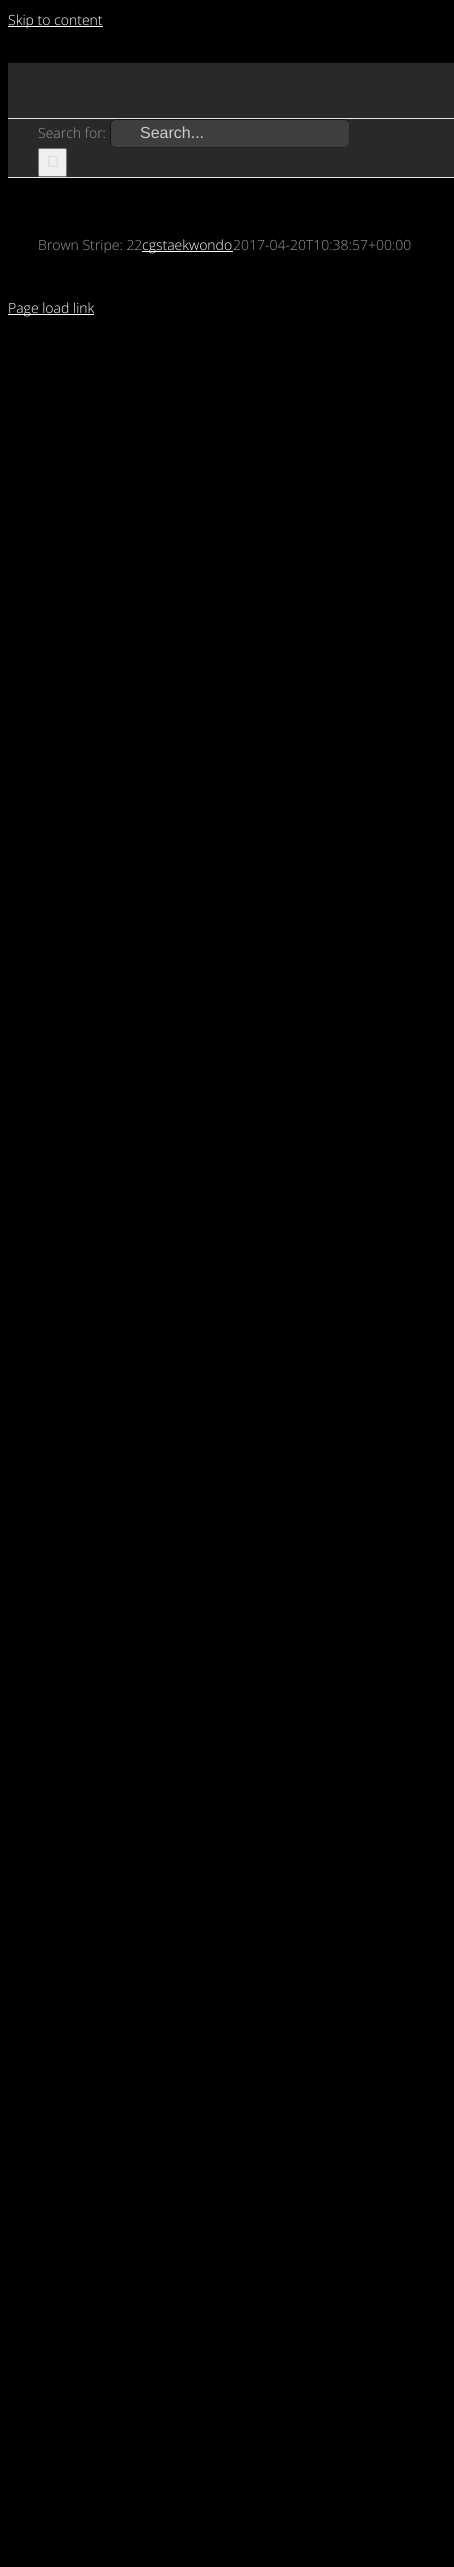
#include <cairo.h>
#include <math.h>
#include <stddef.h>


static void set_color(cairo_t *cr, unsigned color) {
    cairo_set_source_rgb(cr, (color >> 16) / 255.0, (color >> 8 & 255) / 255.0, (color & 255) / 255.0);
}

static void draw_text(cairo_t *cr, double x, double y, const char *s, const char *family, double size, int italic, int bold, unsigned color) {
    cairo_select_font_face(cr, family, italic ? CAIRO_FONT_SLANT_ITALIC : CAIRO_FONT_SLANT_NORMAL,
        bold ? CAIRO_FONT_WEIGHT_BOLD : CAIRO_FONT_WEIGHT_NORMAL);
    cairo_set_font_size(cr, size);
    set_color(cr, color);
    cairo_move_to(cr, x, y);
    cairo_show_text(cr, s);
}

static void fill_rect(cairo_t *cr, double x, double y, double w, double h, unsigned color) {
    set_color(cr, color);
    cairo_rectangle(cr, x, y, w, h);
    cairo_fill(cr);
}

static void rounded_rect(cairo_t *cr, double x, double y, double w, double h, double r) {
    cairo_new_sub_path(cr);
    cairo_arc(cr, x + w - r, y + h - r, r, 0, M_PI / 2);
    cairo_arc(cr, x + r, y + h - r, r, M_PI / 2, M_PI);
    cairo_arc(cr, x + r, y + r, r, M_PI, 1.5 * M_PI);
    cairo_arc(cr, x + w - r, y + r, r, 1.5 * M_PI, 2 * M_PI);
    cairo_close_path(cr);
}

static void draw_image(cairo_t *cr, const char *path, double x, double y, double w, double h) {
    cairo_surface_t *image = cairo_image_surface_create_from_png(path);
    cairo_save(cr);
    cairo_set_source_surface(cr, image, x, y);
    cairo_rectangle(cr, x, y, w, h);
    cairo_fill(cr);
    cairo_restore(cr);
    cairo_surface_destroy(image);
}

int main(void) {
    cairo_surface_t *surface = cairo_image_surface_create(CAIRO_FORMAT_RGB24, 454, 2567);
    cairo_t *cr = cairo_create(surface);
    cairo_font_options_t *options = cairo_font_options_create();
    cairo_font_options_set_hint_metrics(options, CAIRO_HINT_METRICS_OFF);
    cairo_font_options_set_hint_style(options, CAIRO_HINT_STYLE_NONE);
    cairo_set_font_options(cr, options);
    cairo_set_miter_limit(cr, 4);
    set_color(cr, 0x000000);
    cairo_paint(cr);
    fill_rect(cr, 8, 26, 95, 1, 0xFFFFFF);
    draw_text(cr, 8, 25, "Skip to content", "Open Sans Light", 14, 0, 0, 0xFFFFFF);
    fill_rect(cr, 8, 63, 446, 55, 0x29292A);
    fill_rect(cr, 8, 118, 446, 1, 0xE5E5E5);
    fill_rect(cr, 8, 119, 446, 58, 0x29292A);
    fill_rect(cr, 8, 177, 446, 1, 0xE5E5E5);
    draw_text(cr, 38, 138, "Search for:", "Open Sans Light", 14, 0, 0, 0x999999);
    set_color(cr, 0x3E3E3E);
    rounded_rect(cr, 110, 119, 240, 29, 6);
    cairo_fill(cr);
    cairo_new_path(cr);
    cairo_move_to(cr, 348, 121);
    cairo_curve_to(cr, 349, 122, 349.5, 123.5, 349.5, 125);
    cairo_line_to(cr, 349.5, 142);
    cairo_curve_to(cr, 349.5, 143.5, 349, 145, 348, 146);
    cairo_curve_to(cr, 347, 147, 345.5, 147.5, 344, 147.5);
    cairo_line_to(cr, 116, 147.5);
    cairo_curve_to(cr, 114.5, 147.5, 113, 147, 112, 146);
    set_color(cr, 0x212122);
    cairo_set_line_width(cr, 1);
    cairo_stroke(cr);
    cairo_new_path(cr);
    cairo_move_to(cr, 112, 146);
    cairo_curve_to(cr, 111, 145, 110.5, 143.5, 110.5, 142);
    cairo_line_to(cr, 110.5, 125);
    cairo_curve_to(cr, 110.5, 123.5, 111, 122, 112, 121);
    cairo_curve_to(cr, 113, 120, 114.5, 119.5, 116, 119.5);
    cairo_line_to(cr, 344, 119.5);
    cairo_curve_to(cr, 345.5, 119.5, 347, 120, 348, 121);
    set_color(cr, 0x161617);
    cairo_stroke(cr);
    draw_text(cr, 140, 138, "Search...", "Liberation Sans", 16, 0, 0, 0xCCCCCC);
    set_color(cr, 0xEFEFEF);
    rounded_rect(cr, 38.5, 148.5, 28, 28, 1.5);
    cairo_fill_preserve(cr);
    set_color(cr, 0x767676);
    cairo_stroke(cr);
    draw_image(cr, "assets/img1.png", 48, 156, 10, 11);
    draw_text(cr, 38, 250, "Brown Stripe: 22", "Open Sans Light", 14, 0, 0, 0x999999);
    fill_rect(cr, 142, 251, 91, 1, 0xFFFFFF);
    draw_text(cr, 142, 250, "cgstaekwondo", "Open Sans Light", 14, 0, 0, 0xFFFFFF);
    draw_text(cr, 233, 250, "2017-04-20T10:38:57+00:00", "Open Sans Light", 14, 0, 0, 0x999999);
    fill_rect(cr, 8, 314, 86, 1, 0xFFFFFF);
    draw_text(cr, 8, 313, "Page load link", "Open Sans Light", 14, 0, 0, 0xFFFFFF);
    cairo_surface_write_to_png(surface, "output.png");
    cairo_font_options_destroy(options);
    cairo_destroy(cr);
    cairo_surface_destroy(surface);
    return 0;
}
